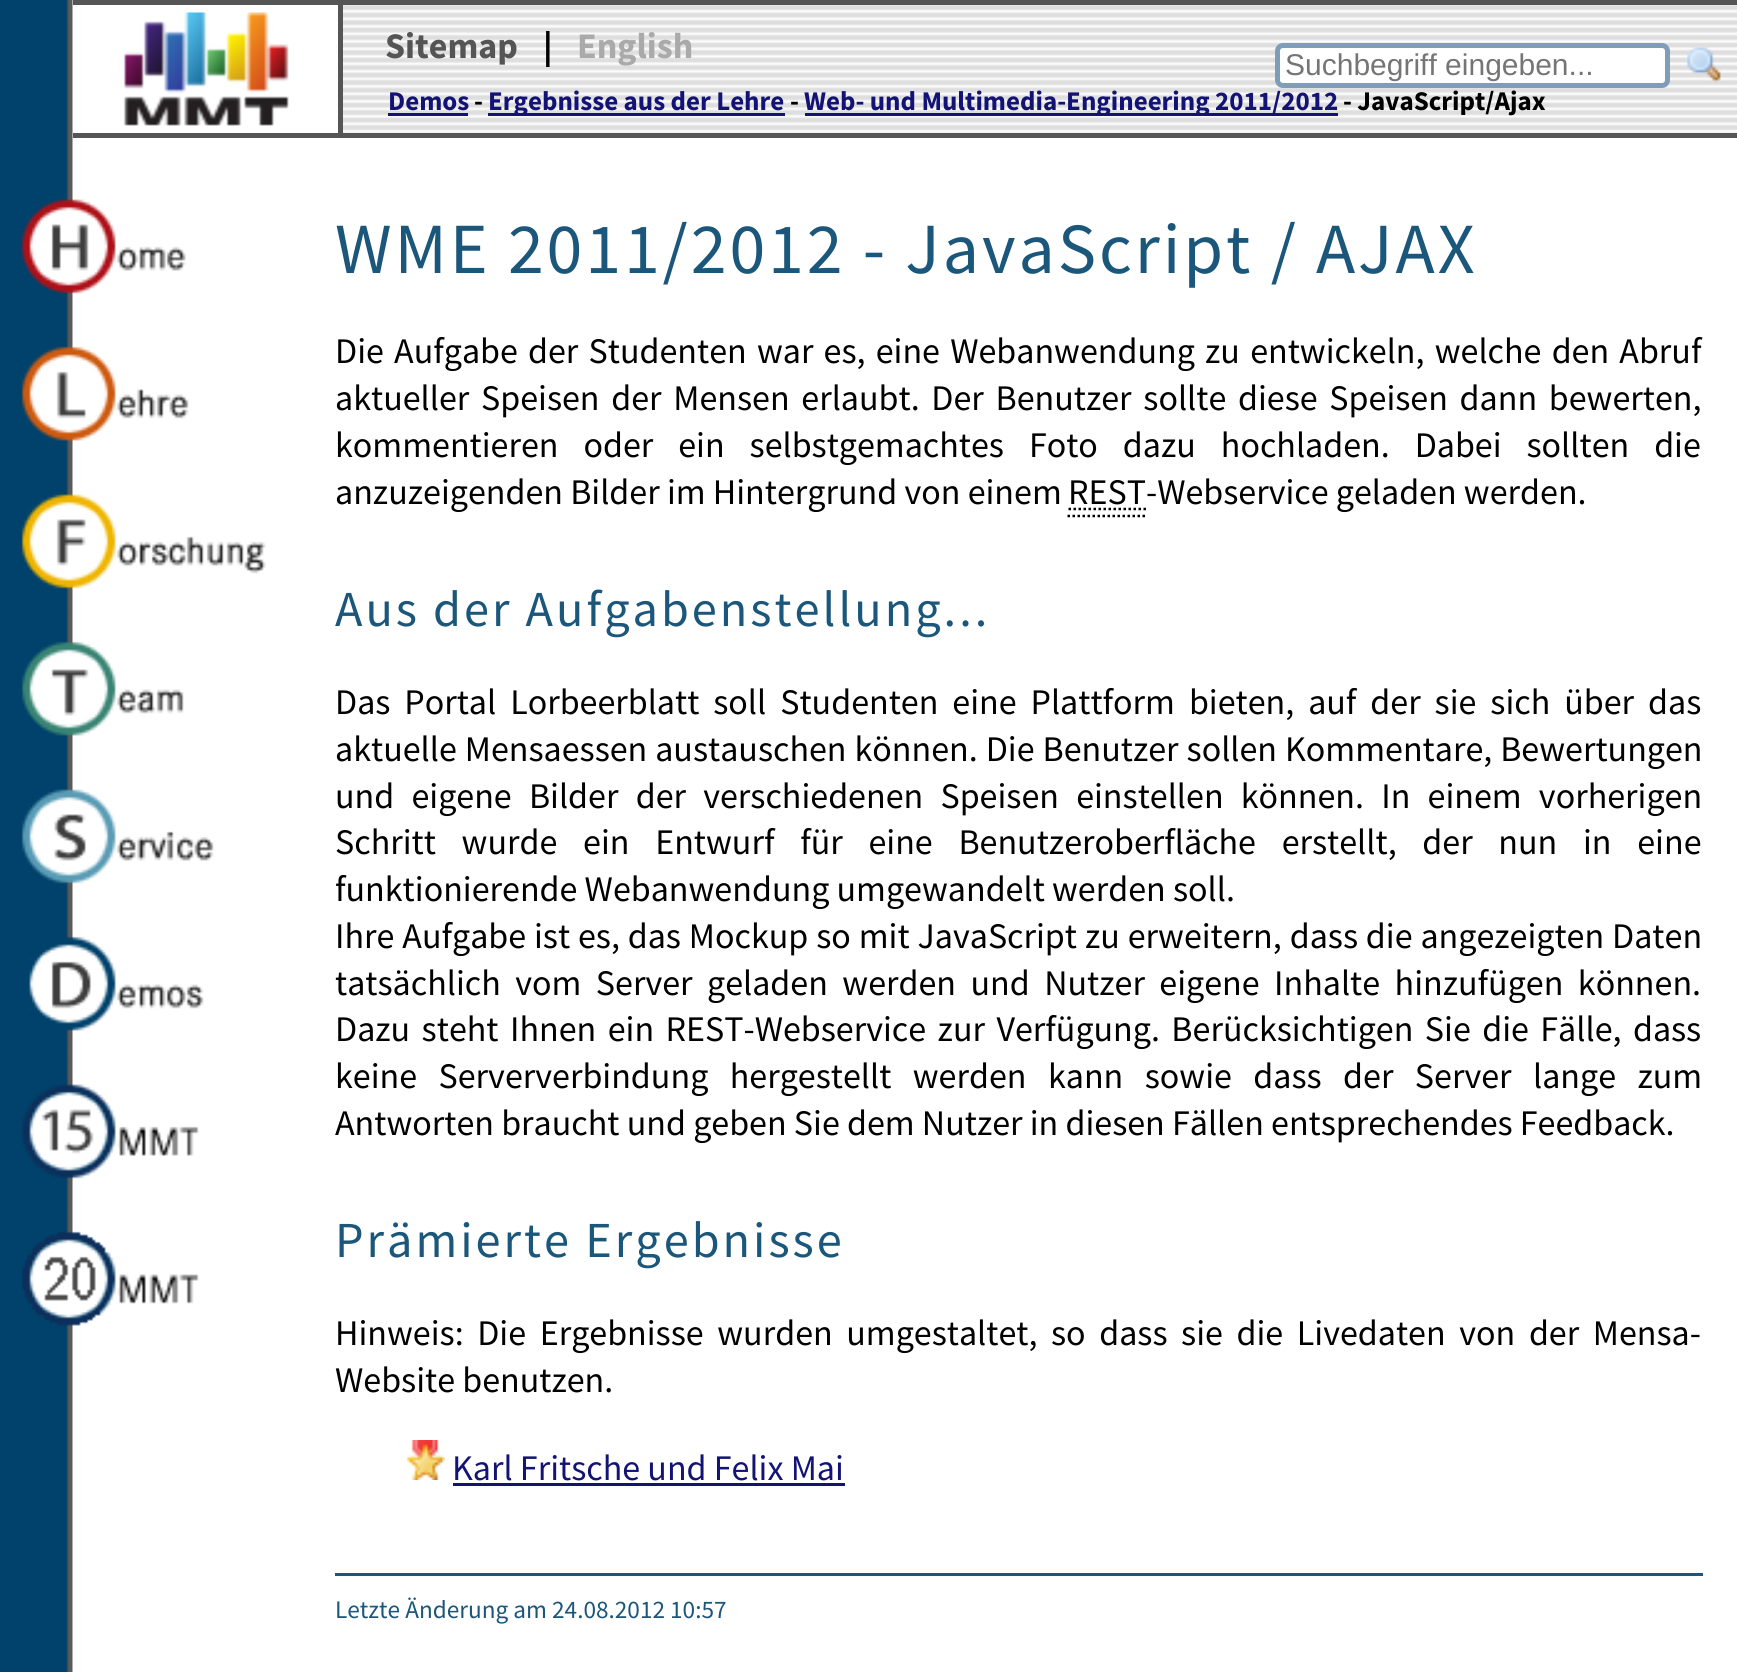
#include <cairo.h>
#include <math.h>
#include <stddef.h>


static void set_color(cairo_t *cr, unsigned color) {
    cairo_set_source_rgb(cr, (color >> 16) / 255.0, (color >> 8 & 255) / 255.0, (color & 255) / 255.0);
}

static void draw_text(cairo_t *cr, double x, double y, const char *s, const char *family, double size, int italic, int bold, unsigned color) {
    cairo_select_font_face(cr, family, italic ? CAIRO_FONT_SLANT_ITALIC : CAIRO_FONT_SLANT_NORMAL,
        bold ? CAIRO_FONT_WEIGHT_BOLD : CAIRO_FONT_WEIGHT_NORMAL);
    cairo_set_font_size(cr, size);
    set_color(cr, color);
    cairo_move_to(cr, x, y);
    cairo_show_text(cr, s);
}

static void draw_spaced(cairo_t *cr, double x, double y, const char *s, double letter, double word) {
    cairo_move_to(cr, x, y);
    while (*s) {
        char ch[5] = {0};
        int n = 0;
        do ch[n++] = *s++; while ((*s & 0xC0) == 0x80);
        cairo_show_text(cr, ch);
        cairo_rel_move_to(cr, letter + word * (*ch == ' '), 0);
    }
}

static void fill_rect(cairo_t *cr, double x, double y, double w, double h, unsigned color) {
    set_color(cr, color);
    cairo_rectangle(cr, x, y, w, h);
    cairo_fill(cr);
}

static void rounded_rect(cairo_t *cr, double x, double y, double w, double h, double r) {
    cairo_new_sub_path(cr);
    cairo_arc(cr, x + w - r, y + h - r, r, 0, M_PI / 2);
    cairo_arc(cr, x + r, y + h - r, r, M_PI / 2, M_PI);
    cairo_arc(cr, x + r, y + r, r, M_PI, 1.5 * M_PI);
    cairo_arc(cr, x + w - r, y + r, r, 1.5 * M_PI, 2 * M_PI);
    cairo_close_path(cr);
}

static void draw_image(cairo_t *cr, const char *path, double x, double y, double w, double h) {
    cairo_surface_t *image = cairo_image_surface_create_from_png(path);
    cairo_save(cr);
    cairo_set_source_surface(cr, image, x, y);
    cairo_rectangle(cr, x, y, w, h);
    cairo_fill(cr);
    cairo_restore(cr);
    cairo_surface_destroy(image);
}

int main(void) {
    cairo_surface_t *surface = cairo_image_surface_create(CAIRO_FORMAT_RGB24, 1737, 1672);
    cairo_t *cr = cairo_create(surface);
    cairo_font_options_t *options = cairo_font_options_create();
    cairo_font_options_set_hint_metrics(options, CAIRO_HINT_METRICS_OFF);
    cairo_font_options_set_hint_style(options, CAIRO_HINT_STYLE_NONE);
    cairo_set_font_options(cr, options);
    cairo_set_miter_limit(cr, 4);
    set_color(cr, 0xFFFFFF);
    cairo_paint(cr);
    draw_image(cr, "assets/img1.png", 0, 0, 73, 1672);
    draw_image(cr, "assets/img2.png", 343, 5, 1394, 128);
    fill_rect(cr, 73, 0, 1664, 5, 0x555555);
    fill_rect(cr, 73, 133, 1664, 5, 0x555555);
    fill_rect(cr, 338, 5, 5, 128, 0x555555);
    draw_image(cr, "assets/img3.png", 123, 12, 166, 114);
    draw_text(cr, 385, 58, "Sitemap", "Source Sans Pro", 36, 0, 1, 0x555555);
    draw_text(cr, 543, 58, "|", "Source Sans Pro", 36, 0, 1, 0x000000);
    draw_text(cr, 577, 58, "English", "Source Sans Pro", 36, 0, 1, 0xAAAAAA);
    set_color(cr, 0xFFFFFF);
    rounded_rect(cr, 1277.5, 45.5, 390, 40, 5.5);
    cairo_fill_preserve(cr);
    set_color(cr, 0x7F9DB9);
    cairo_set_line_width(cr, 5);
    cairo_stroke(cr);
    draw_text(cr, 1285, 75, "Suchbegriff eingeben...", "Liberation Sans", 30, 0, 0, 0x757575);
    draw_image(cr, "assets/img4.png", 1686, 47, 35, 36);
    draw_text(cr, 388, 110, "Demos", "Source Sans Pro", 27, 0, 1, 0x131375);
    fill_rect(cr, 388, 113, 80, 3, 0x131375);
    draw_text(cr, 474, 110, "-", "Source Sans Pro", 27, 0, 1, 0x000000);
    fill_rect(cr, 488, 113, 297, 3, 0x131375);
    draw_text(cr, 488, 110, "Ergebnisse aus der Lehre", "Source Sans Pro", 27, 0, 1, 0x131375);
    draw_text(cr, 790, 110, "-", "Source Sans Pro", 27, 0, 1, 0x000000);
    fill_rect(cr, 805, 113, 533, 3, 0x131375);
    draw_text(cr, 804, 110, "Web- und Multimedia-Engineering 2011/2012", "Source Sans Pro", 27, 0, 1, 0x131375);
    draw_text(cr, 1343, 110, "- JavaScript/Ajax", "Source Sans Pro", 27, 0, 1, 0x000000);
    draw_image(cr, "assets/img5.png", 21, 199, 165, 95);
    draw_image(cr, "assets/img6.png", 21, 346, 168, 95);
    draw_image(cr, "assets/img7.png", 21, 494, 245, 95);
    draw_image(cr, "assets/img8.png", 21, 641, 163, 95);
    draw_image(cr, "assets/img9.png", 21, 789, 193, 95);
    draw_image(cr, "assets/img10.png", 29, 936, 175, 95);
    draw_image(cr, "assets/img11.png", 22, 1084, 177, 95);
    draw_image(cr, "assets/img12.png", 22, 1231, 177, 95);
    cairo_select_font_face(cr, "Source Sans Pro", CAIRO_FONT_SLANT_NORMAL, CAIRO_FONT_WEIGHT_NORMAL);
    cairo_set_font_size(cr, 72);
    set_color(cr, 0x1B567B);
    draw_spaced(cr, 335, 273, "WME 2011/2012 - JavaScript / AJAX", 2.9, 0);
    cairo_set_font_size(cr, 36);
    set_color(cr, 0x000000);
    draw_spaced(cr, 335, 363, "Die Aufgabe der Studenten war es, eine Webanwendung zu entwickeln, welche den Abruf", 0, 3);
    draw_spaced(cr, 335, 410, "aktueller Speisen der Mensen erlaubt. Der Benutzer sollte diese Speisen dann bewerten,", 0, 4.5);
    draw_spaced(cr, 335, 457, "kommentieren oder ein selbstgemachtes Foto dazu hochladen. Dabei sollten die", 0, 17.75);
    draw_text(cr, 335, 504, "anzuzeigenden Bilder im Hintergrund von einem", "Source Sans Pro", 36, 0, 0, 0x000000);
    cairo_new_path(cr);
    cairo_move_to(cr, 1068.5, 509);
    cairo_line_to(cr, 1146.5, 509);
    cairo_set_line_width(cr, 2.5);
    cairo_set_dash(cr, (double[]){2.5, 2.5}, 2, 0);
    cairo_stroke(cr);
    draw_text(cr, 1068, 504, "REST-Webservice geladen werden.", "Source Sans Pro", 36, 0, 0, 0x000000);
    cairo_new_path(cr);
    cairo_move_to(cr, 1067.5, 516);
    cairo_line_to(cr, 1147.5, 516);
    cairo_stroke(cr);
    cairo_set_font_size(cr, 50.4);
    set_color(cr, 0x1B567B);
    draw_spaced(cr, 335, 626, "Aus der Aufgabenstellung...", 3, 0);
    cairo_set_font_size(cr, 36);
    set_color(cr, 0x000000);
    draw_spaced(cr, 335, 714, "Das Portal Lorbeerblatt soll Studenten eine Plattform bieten, auf der sie sich über das", 0, 6.75);
    draw_spaced(cr, 335, 761, "aktuelle Mensaessen austauschen können. Die Benutzer sollen Kommentare, Bewertungen", 0, 0.75);
    draw_spaced(cr, 335, 808, "und eigene Bilder der verschiedenen Speisen einstellen können. In einem vorherigen", 0, 10);
    draw_spaced(cr, 335, 854, "Schritt wurde ein Entwurf für eine Benutzeroberfläche erstellt, der nun in eine", 0, 18.5);
    draw_text(cr, 335, 901, "funktionierende Webanwendung umgewandelt werden soll.", "Source Sans Pro", 36, 0, 0, 0x000000);
    draw_spaced(cr, 335, 948, "Ihre Aufgabe ist es, das Mockup so mit JavaScript zu erweitern, dass die angezeigten Daten", 0, 0.7);
    draw_spaced(cr, 335, 995, "tatsächlich vom Server geladen werden und Nutzer eigene Inhalte hinzufügen können.", 0, 7.25);
    draw_spaced(cr, 335, 1041, "Dazu steht Ihnen ein REST-Webservice zur Verfügung. Berücksichtigen Sie die Fälle, dass", 0, 4.25);
    draw_spaced(cr, 335, 1088, "keine Serververbindung hergestellt werden kann sowie dass der Server lange zum", 0, 14.25);
    draw_text(cr, 335, 1135, "Antworten braucht und geben Sie dem Nutzer in diesen Fällen entsprechendes Feedback.", "Source Sans Pro", 36, 0, 0, 0x000000);
    cairo_set_font_size(cr, 50.4);
    set_color(cr, 0x1B567B);
    draw_spaced(cr, 335, 1257, "Prämierte Ergebnisse", 3, 0);
    cairo_set_font_size(cr, 36);
    set_color(cr, 0x000000);
    draw_spaced(cr, 335, 1345, "Hinweis: Die Ergebnisse wurden umgestaltet, so dass sie die Livedaten von der Mensa-", 0, 6.4);
    draw_text(cr, 335, 1392, "Website benutzen.", "Source Sans Pro", 36, 0, 0, 0x000000);
    draw_image(cr, "assets/img13.png", 406, 1440, 39, 40);
    draw_text(cr, 452, 1480, "Karl Fritsche und Felix Mai", "Source Sans Pro", 36, 0, 0, 0x131375);
    fill_rect(cr, 453, 1483, 392, 3, 0x131375);
    fill_rect(cr, 335, 1573, 1368, 3, 0x1B567B);
    draw_text(cr, 335, 1618, "Letzte Änderung am 24.08.2012 10:57", "Source Sans Pro", 25.25, 0, 0, 0x1B567B);
    cairo_surface_write_to_png(surface, "output.png");
    cairo_font_options_destroy(options);
    cairo_destroy(cr);
    cairo_surface_destroy(surface);
    return 0;
}
